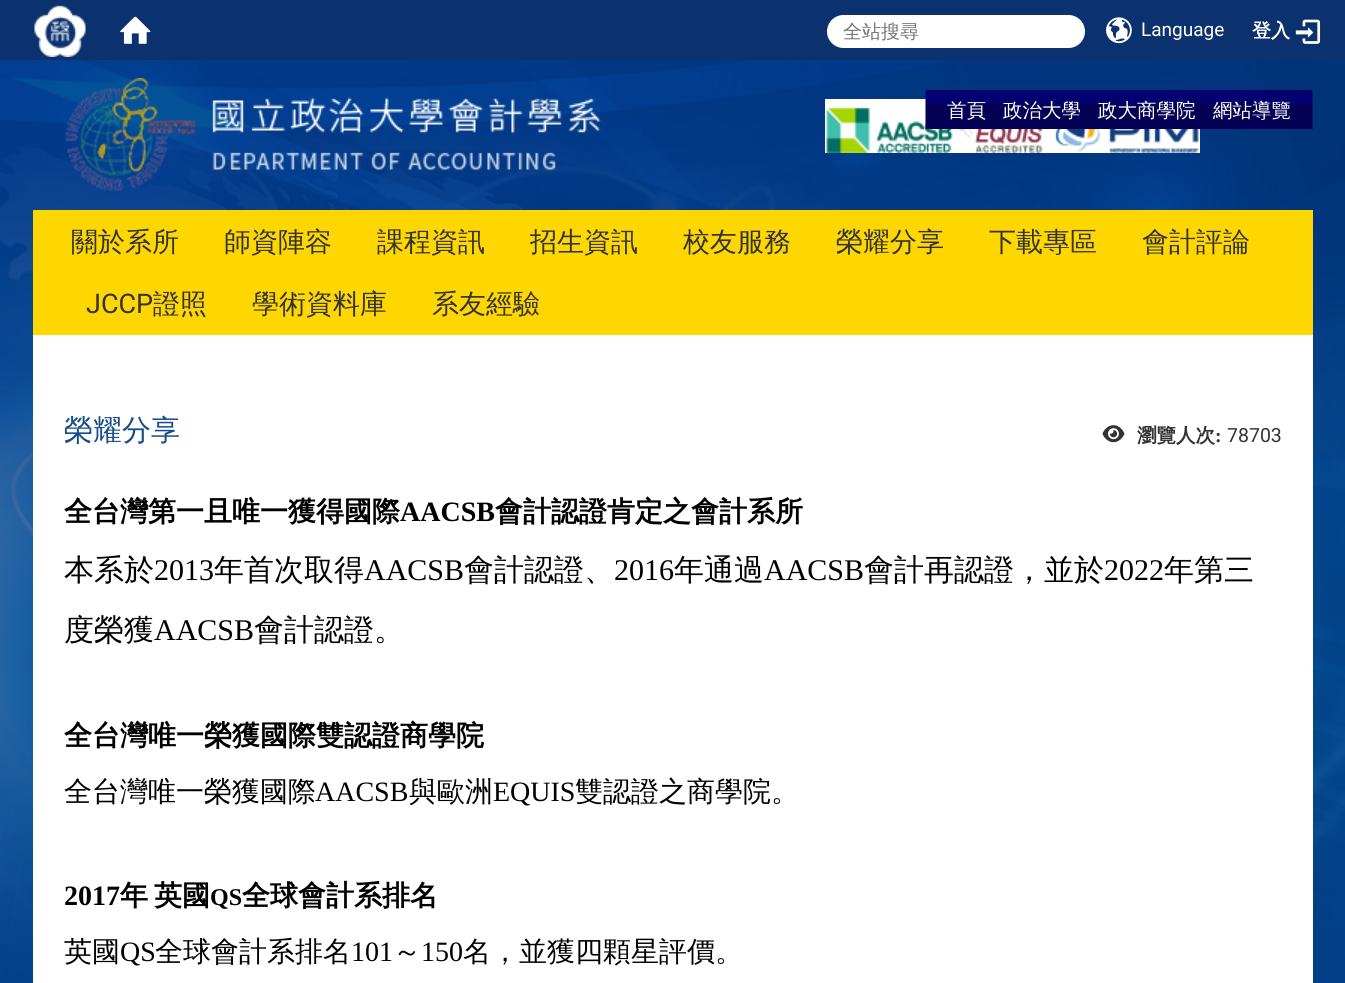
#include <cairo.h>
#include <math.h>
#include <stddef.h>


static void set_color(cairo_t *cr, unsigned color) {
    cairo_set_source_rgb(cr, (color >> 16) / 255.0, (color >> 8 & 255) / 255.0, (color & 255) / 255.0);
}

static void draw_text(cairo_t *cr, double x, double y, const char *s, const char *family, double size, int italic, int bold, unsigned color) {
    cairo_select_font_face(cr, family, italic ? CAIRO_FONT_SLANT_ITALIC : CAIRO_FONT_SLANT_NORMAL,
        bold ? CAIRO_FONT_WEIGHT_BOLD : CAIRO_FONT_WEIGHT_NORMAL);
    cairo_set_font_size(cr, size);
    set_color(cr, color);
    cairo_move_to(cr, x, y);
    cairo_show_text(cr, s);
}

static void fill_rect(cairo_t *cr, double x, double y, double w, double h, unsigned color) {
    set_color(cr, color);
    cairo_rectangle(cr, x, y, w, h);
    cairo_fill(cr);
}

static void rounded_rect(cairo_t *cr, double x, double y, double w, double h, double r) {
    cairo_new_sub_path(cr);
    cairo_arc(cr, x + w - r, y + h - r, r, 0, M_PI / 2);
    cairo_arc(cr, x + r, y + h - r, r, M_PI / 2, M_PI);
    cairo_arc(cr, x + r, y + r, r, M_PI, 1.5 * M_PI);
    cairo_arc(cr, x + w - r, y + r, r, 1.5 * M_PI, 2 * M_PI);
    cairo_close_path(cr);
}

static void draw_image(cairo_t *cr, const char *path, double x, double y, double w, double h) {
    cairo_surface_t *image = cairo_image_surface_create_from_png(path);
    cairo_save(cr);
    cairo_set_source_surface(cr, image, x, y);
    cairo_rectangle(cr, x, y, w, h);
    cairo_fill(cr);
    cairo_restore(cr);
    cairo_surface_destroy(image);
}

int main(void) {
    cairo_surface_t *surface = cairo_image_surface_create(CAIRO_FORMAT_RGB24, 1345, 983);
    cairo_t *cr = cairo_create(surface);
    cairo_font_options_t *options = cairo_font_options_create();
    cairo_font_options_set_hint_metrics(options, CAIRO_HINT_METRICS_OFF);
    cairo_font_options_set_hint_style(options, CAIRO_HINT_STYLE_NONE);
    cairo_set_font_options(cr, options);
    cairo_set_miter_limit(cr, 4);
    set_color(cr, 0xFFFFFF);
    cairo_paint(cr);
    draw_image(cr, "assets/img1.png", 0, 60, 1345, 923);
    fill_rect(cr, 0, 0, 1345, 60, 0x0B316F);
    draw_image(cr, "assets/img2.png", 34, 5, 52, 52);
    draw_image(cr, "assets/img3.png", 120, 16, 31, 28);
    set_color(cr, 0xFFFFFF);
    rounded_rect(cr, 827, 15, 258, 33, 16.5);
    cairo_fill(cr);
    draw_text(cr, 843, 38, "全站搜尋", "WenQuanYi Zen Hei Medium", 19, 0, 0, 0x757575);
    draw_image(cr, "assets/img4.png", 1106, 17, 26, 27);
    draw_text(cr, 1141, 36, "Language", "Roboto", 19, 0, 0, 0xFFFFFF);
    draw_text(cr, 1252, 37, "登入", "WenQuanYi Zen Hei", 19, 0, 1, 0xFFFFFF);
    draw_image(cr, "assets/img5.png", 1295, 19, 26, 25);
    draw_image(cr, "assets/img6.png", 65, 78, 536, 113);
    draw_image(cr, "assets/img7.png", 825, 99, 375, 54);
    draw_image(cr, "assets/img8.png", 925, 90, 388, 39);
    draw_text(cr, 947, 117, "首頁", "WenQuanYi Zen Hei Medium", 19.5, 0, 0, 0xFFFFFF);
    draw_text(cr, 1003, 117, "政治大學", "WenQuanYi Zen Hei Medium", 19.5, 0, 0, 0xFFFFFF);
    draw_text(cr, 1098, 117, "政大商學院", "WenQuanYi Zen Hei Medium", 19.5, 0, 0, 0xFFFFFF);
    draw_text(cr, 1213, 117, "網站導覽", "WenQuanYi Zen Hei Medium", 19.5, 0, 0, 0xFFFFFF);
    fill_rect(cr, 33, 210, 1280, 125, 0xFFD700);
    draw_text(cr, 71, 251, "關於系所", "WenQuanYi Zen Hei Medium", 27, 0, 0, 0x333333);
    draw_text(cr, 224, 251, "師資陣容", "WenQuanYi Zen Hei Medium", 27, 0, 0, 0x333333);
    draw_text(cr, 377, 251, "課程資訊", "WenQuanYi Zen Hei Medium", 27, 0, 0, 0x333333);
    draw_text(cr, 530, 251, "招生資訊", "WenQuanYi Zen Hei Medium", 27, 0, 0, 0x333333);
    draw_text(cr, 683, 251, "校友服務", "WenQuanYi Zen Hei Medium", 27, 0, 0, 0x333333);
    draw_text(cr, 836, 251, "榮耀分享", "WenQuanYi Zen Hei Medium", 27, 0, 0, 0x333333);
    draw_text(cr, 989, 251, "下載專區", "WenQuanYi Zen Hei Medium", 27, 0, 0, 0x333333);
    draw_text(cr, 1142, 251, "會計評論", "WenQuanYi Zen Hei Medium", 27, 0, 0, 0x333333);
    draw_text(cr, 86, 313, "JCCP", "Roboto", 27, 0, 0, 0x333333);
    draw_text(cr, 153, 313, "證照", "WenQuanYi Zen Hei Medium", 27, 0, 0, 0x333333);
    draw_text(cr, 252, 313, "學術資料庫", "WenQuanYi Zen Hei Medium", 27, 0, 0, 0x333333);
    draw_text(cr, 432, 313, "系友經驗", "WenQuanYi Zen Hei Medium", 27, 0, 0, 0x333333);
    fill_rect(cr, 33, 335, 1280, 648, 0xFFFFFF);
    draw_text(cr, 64, 440, "榮耀分享", "WenQuanYi Zen Hei Medium", 29, 0, 0, 0x164C89);
    draw_image(cr, "assets/img9.png", 1102, 425, 23, 18);
    draw_text(cr, 1137, 442, "瀏覽人次", "WenQuanYi Zen Hei", 19.5, 0, 1, 0x333333);
    draw_text(cr, 1215, 442, ":", "Liberation Serif", 19.5, 0, 1, 0x333333);
    draw_text(cr, 1227, 442, "78703", "Roboto", 19.5, 0, 0, 0x333333);
    draw_text(cr, 64, 521, "全台灣第一且唯一獲得國際", "WenQuanYi Zen Hei", 28, 0, 1, 0x000000);
    draw_text(cr, 400, 521, "AACSB", "Liberation Serif", 28, 0, 1, 0x000000);
    draw_text(cr, 495, 521, "會計認證肯定之會計系所", "WenQuanYi Zen Hei", 28, 0, 1, 0x000000);
    draw_text(cr, 64, 580, "本系於", "WenQuanYi Zen Hei Medium", 30, 0, 0, 0x000000);
    draw_text(cr, 154, 580, "2013", "Liberation Serif", 30, 0, 0, 0x000000);
    draw_text(cr, 214, 580, "年首次取得", "WenQuanYi Zen Hei Medium", 30, 0, 0, 0x000000);
    draw_text(cr, 364, 580, "AACSB", "Liberation Serif", 30, 0, 0, 0x000000);
    draw_text(cr, 464, 580, "會計認證、", "WenQuanYi Zen Hei Medium", 30, 0, 0, 0x000000);
    draw_text(cr, 614, 580, "2016", "Liberation Serif", 30, 0, 0, 0x000000);
    draw_text(cr, 674, 580, "年通過", "WenQuanYi Zen Hei Medium", 30, 0, 0, 0x000000);
    draw_text(cr, 764, 580, "AACSB", "Liberation Serif", 30, 0, 0, 0x000000);
    draw_text(cr, 864, 580, "會計再認證，並於", "WenQuanYi Zen Hei Medium", 30, 0, 0, 0x000000);
    draw_text(cr, 1104, 580, "2022", "Liberation Serif", 30, 0, 0, 0x000000);
    draw_text(cr, 1164, 580, "年第三", "WenQuanYi Zen Hei Medium", 30, 0, 0, 0x000000);
    draw_text(cr, 64, 640, "度榮獲", "WenQuanYi Zen Hei Medium", 30, 0, 0, 0x000000);
    draw_text(cr, 154, 640, "AACSB", "Liberation Serif", 30, 0, 0, 0x000000);
    draw_text(cr, 254, 640, "會計認證。", "WenQuanYi Zen Hei Medium", 30, 0, 0, 0x000000);
    draw_text(cr, 64, 745, "全台灣唯一榮獲國際雙認證商學院", "WenQuanYi Zen Hei", 28, 0, 1, 0x000000);
    draw_text(cr, 64, 801, "全台灣唯一榮獲國際", "WenQuanYi Zen Hei Medium", 28, 0, 0, 0x000000);
    draw_text(cr, 315, 801, "AACSB", "Liberation Serif", 28, 0, 0, 0x000000);
    draw_text(cr, 409, 801, "與歐洲", "WenQuanYi Zen Hei Medium", 28, 0, 0, 0x000000);
    draw_text(cr, 493, 801, "EQUIS", "Liberation Serif", 28, 0, 0, 0x000000);
    draw_text(cr, 575, 801, "雙認證之商學院。", "WenQuanYi Zen Hei Medium", 28, 0, 0, 0x000000);
    draw_text(cr, 64, 905, "2017", "Liberation Serif", 28, 0, 1, 0x000000);
    draw_text(cr, 120, 905, "年", "WenQuanYi Zen Hei", 28, 0, 1, 0x000000);
    draw_text(cr, 154, 905, "英國", "WenQuanYi Zen Hei", 28, 0, 1, 0x000000);
    draw_text(cr, 210, 905, "QS", "Liberation Serif", 24, 0, 1, 0x000000);
    draw_text(cr, 242, 905, "全球會計系排名", "WenQuanYi Zen Hei", 28, 0, 1, 0x000000);
    draw_text(cr, 64, 961, "英國", "WenQuanYi Zen Hei Medium", 28, 0, 0, 0x000000);
    draw_text(cr, 120, 961, "QS", "Liberation Serif", 28, 0, 0, 0x000000);
    draw_text(cr, 155, 961, "全球會計系排名", "WenQuanYi Zen Hei Medium", 28, 0, 0, 0x000000);
    draw_text(cr, 351, 961, "101", "Liberation Serif", 28, 0, 0, 0x000000);
    draw_text(cr, 393, 961, "～", "WenQuanYi Zen Hei Medium", 28, 0, 0, 0x000000);
    draw_text(cr, 421, 961, "150", "Liberation Serif", 28, 0, 0, 0x000000);
    draw_text(cr, 463, 961, "名，並獲四顆星評價。", "WenQuanYi Zen Hei Medium", 28, 0, 0, 0x000000);
    cairo_surface_write_to_png(surface, "output.png");
    cairo_font_options_destroy(options);
    cairo_destroy(cr);
    cairo_surface_destroy(surface);
    return 0;
}
